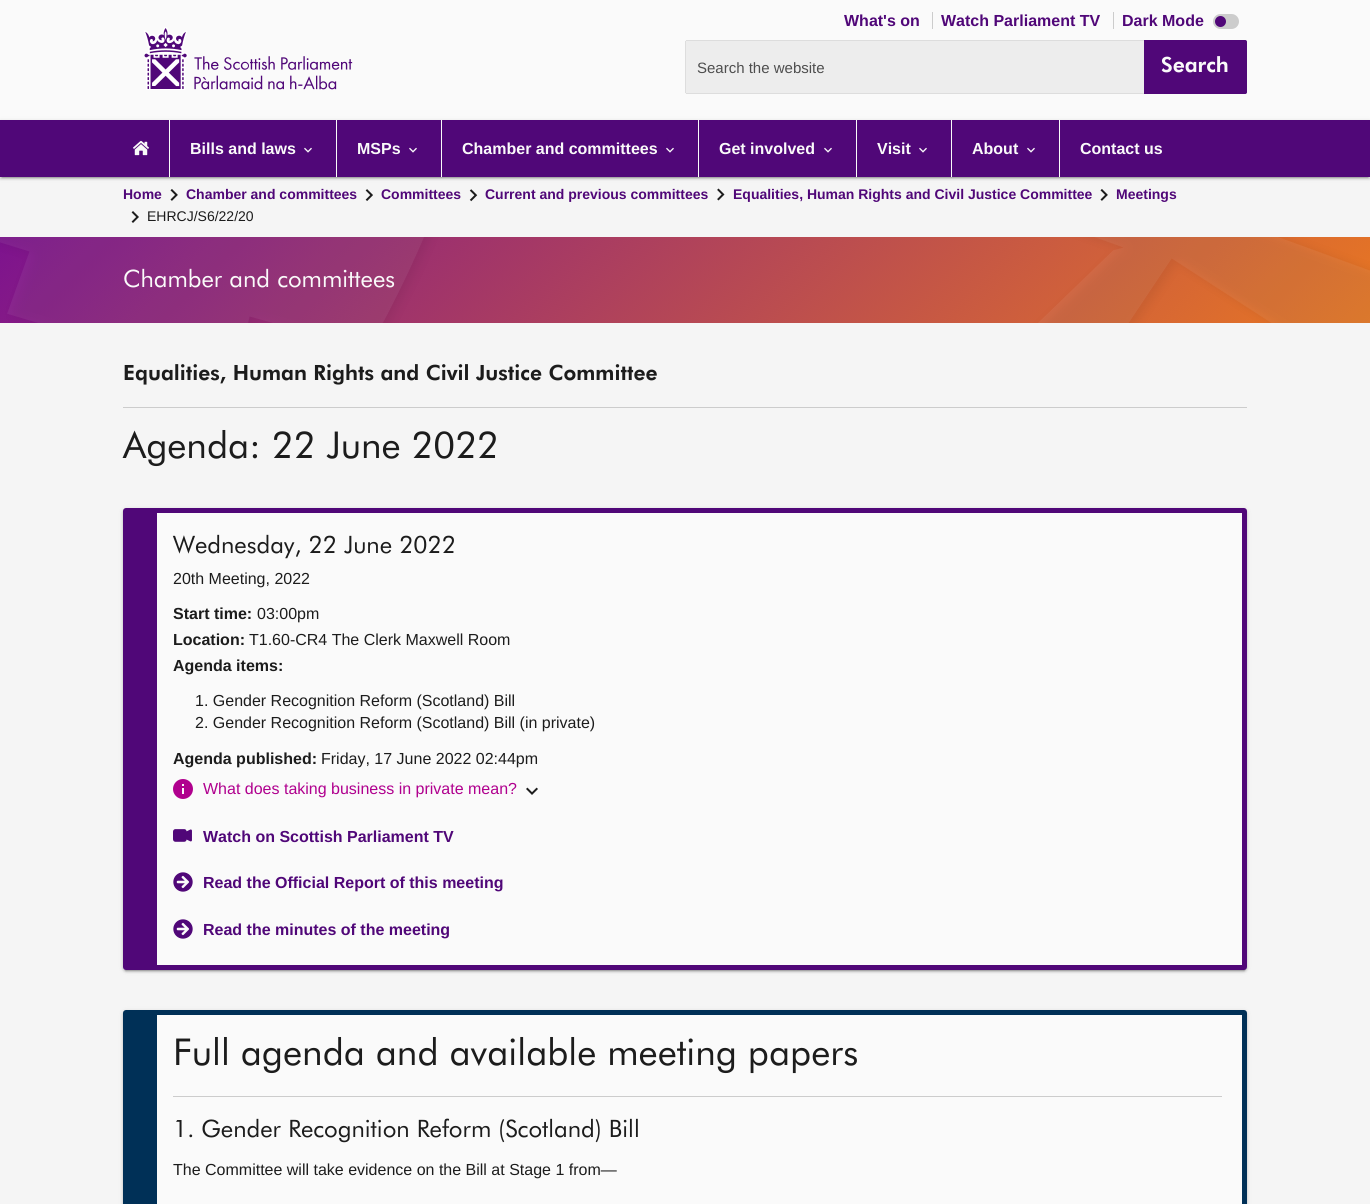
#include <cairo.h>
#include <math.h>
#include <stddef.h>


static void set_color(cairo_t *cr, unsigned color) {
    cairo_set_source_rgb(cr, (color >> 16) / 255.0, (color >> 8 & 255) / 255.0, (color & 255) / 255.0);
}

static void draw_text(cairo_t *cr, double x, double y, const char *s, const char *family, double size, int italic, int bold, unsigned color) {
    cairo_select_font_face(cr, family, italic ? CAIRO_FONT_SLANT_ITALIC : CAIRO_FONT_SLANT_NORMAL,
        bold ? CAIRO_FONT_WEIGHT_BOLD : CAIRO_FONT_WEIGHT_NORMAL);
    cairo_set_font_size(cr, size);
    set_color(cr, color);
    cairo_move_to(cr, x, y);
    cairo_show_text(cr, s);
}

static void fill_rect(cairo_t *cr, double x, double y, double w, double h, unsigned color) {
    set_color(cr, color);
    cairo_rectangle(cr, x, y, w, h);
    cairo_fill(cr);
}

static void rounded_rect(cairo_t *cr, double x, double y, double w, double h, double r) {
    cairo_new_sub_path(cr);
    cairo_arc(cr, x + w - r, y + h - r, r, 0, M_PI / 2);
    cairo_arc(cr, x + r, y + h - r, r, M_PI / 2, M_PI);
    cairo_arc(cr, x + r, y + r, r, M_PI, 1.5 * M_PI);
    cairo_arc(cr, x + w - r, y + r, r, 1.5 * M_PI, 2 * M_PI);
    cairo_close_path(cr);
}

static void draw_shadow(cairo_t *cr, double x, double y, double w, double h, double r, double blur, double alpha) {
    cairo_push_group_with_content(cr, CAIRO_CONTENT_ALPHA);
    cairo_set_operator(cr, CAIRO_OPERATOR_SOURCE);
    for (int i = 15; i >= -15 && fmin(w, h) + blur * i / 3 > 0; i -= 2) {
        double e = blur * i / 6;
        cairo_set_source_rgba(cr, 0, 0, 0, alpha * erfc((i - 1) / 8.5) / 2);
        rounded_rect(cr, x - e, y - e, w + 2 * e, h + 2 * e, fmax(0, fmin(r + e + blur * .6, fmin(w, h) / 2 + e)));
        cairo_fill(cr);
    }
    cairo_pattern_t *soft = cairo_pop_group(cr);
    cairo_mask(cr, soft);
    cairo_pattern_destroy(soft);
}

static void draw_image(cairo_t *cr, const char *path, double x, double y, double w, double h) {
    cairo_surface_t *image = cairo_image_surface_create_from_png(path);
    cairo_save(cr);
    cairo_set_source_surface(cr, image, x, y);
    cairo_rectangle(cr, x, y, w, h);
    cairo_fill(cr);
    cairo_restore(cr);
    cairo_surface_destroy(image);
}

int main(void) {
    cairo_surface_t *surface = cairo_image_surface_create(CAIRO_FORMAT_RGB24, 1370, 1204);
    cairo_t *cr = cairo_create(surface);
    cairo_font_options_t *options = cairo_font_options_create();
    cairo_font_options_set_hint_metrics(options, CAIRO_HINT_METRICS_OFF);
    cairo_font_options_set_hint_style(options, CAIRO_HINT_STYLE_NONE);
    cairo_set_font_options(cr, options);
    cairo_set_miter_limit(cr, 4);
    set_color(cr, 0xF5F5F5);
    cairo_paint(cr);
    fill_rect(cr, 0, 0, 1370, 120, 0xFAFAFA);
    draw_text(cr, 844, 26, "What's on", "Liberation Sans", 16, 0, 1, 0x500778);
    draw_text(cr, 941, 26, "Watch Parliament TV", "Liberation Sans", 16, 0, 1, 0x500778);
    fill_rect(cr, 932, 12, 1, 17, 0xCCCCCC);
    fill_rect(cr, 1113, 12, 1, 17, 0xCCCCCC);
    draw_text(cr, 1122, 26, "Dark Mode", "Liberation Sans", 16, 0, 1, 0x500778);
    set_color(cr, 0xCCCCCC);
    rounded_rect(cr, 1213, 14, 26, 15, 7.5);
    cairo_fill(cr);
    set_color(cr, 0x500778);
    cairo_arc(cr, 1220.5, 21.5, 5.5, 0, 2 * M_PI);
    cairo_fill(cr);
    draw_image(cr, "assets/img1.png", 144, 27, 209, 63);
    set_color(cr, 0xEDEDED);
    cairo_new_path(cr);
    cairo_move_to(cr, 687, 40);
    cairo_line_to(cr, 1144, 40);
    cairo_line_to(cr, 1144, 94);
    cairo_line_to(cr, 687, 94);
    cairo_curve_to(cr, 686, 94, 685, 93, 685, 92);
    cairo_line_to(cr, 685, 42);
    cairo_curve_to(cr, 685, 41, 686, 40, 687, 40);
    cairo_close_path(cr);
    cairo_fill(cr);
    fill_rect(cr, 686, 40, 458, 1, 0xDDDDDD);
    fill_rect(cr, 686, 93, 458, 1, 0xDDDDDD);
    fill_rect(cr, 685, 41, 1, 52, 0xDDDDDD);
    draw_text(cr, 697, 73, "Search the website", "Liberation Sans", 15, 0, 0, 0x4E4E4E);
    set_color(cr, 0x500778);
    cairo_new_path(cr);
    cairo_move_to(cr, 1144.5, 40.5);
    cairo_line_to(cr, 1245, 40.5);
    cairo_curve_to(cr, 1246, 40.5, 1246.5, 41, 1246.5, 42);
    cairo_line_to(cr, 1246.5, 92);
    cairo_curve_to(cr, 1246.5, 93, 1246, 93.5, 1245, 93.5);
    cairo_line_to(cr, 1144.5, 93.5);
    cairo_close_path(cr);
    cairo_fill_preserve(cr);
    cairo_set_line_width(cr, 1);
    cairo_stroke(cr);
    draw_text(cr, 1161, 72, "Search", "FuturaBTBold", 21, 0, 1, 0xFAFAFA);
    set_color(cr, 0x0A0A0A);
    draw_shadow(cr, 0, 121, 1370, 57, 0, 2.5, 0.12);
    draw_shadow(cr, 2, 125, 1366, 53, 0, 0.5, 0.2);
    draw_shadow(cr, 0, 122, 1370, 57, 0, 1, 0.14);
    fill_rect(cr, 0, 120, 1370, 57, 0x500778);
    fill_rect(cr, 169, 120, 1, 57, 0xFAFAFA);
    draw_image(cr, "assets/img2.png", 133, 140, 16, 16);
    fill_rect(cr, 336, 120, 1, 57, 0xFAFAFA);
    draw_text(cr, 190, 154, "Bills and laws", "Liberation Sans", 16, 0, 1, 0xFAFAFA);
    draw_image(cr, "assets/img3.png", 304, 147, 8, 6);
    fill_rect(cr, 441, 120, 1, 57, 0xFAFAFA);
    draw_text(cr, 357, 154, "MSPs", "Liberation Sans", 16, 0, 1, 0xFAFAFA);
    draw_image(cr, "assets/img3.png", 409, 147, 8, 6);
    fill_rect(cr, 698, 120, 1, 57, 0xFAFAFA);
    draw_text(cr, 462, 154, "Chamber and committees", "Liberation Sans", 16, 0, 1, 0xFAFAFA);
    draw_image(cr, "assets/img3.png", 666, 147, 8, 6);
    fill_rect(cr, 856, 120, 1, 57, 0xFAFAFA);
    draw_text(cr, 719, 154, "Get involved", "Liberation Sans", 16, 0, 1, 0xFAFAFA);
    draw_image(cr, "assets/img3.png", 824, 147, 8, 6);
    fill_rect(cr, 951, 120, 1, 57, 0xFAFAFA);
    draw_text(cr, 877, 154, "Visit", "Liberation Sans", 16, 0, 1, 0xFAFAFA);
    draw_image(cr, "assets/img3.png", 919, 147, 8, 6);
    fill_rect(cr, 1059, 120, 1, 57, 0xFAFAFA);
    draw_text(cr, 972, 154, "About", "Liberation Sans", 16, 0, 1, 0xFAFAFA);
    draw_image(cr, "assets/img3.png", 1027, 147, 8, 6);
    draw_text(cr, 1080, 154, "Contact us", "Liberation Sans", 16, 0, 1, 0xFAFAFA);
    draw_text(cr, 123, 199, "Home", "Liberation Sans", 14, 0, 1, 0x500778);
    draw_image(cr, "assets/img4.png", 170, 189, 8, 12);
    draw_text(cr, 186, 199, "Chamber and committees", "Liberation Sans", 14, 0, 1, 0x500778);
    draw_image(cr, "assets/img5.png", 365, 189, 8, 12);
    draw_text(cr, 381, 199, "Committees", "Liberation Sans", 14, 0, 1, 0x500778);
    draw_image(cr, "assets/img6.png", 469, 189, 9, 13);
    draw_text(cr, 485, 199, "Current and previous committees", "Liberation Sans", 14, 0, 1, 0x500778);
    draw_image(cr, "assets/img7.png", 717, 188, 8, 13);
    draw_text(cr, 733, 199, "Equalities, Human Rights and Civil Justice Committee", "Liberation Sans", 14, 0, 1, 0x500778);
    draw_image(cr, "assets/img4.png", 1100, 189, 8, 12);
    draw_text(cr, 1116, 199, "Meetings", "Liberation Sans", 14, 0, 1, 0x500778);
    draw_image(cr, "assets/img8.png", 131, 211, 8, 12);
    draw_text(cr, 147, 221, "EHRCJ/S6/22/20", "Liberation Sans", 14, 0, 0, 0x1C1C1C);
    draw_image(cr, "assets/img9.png", 0, 237, 1370, 86);
    draw_text(cr, 123, 287, "Chamber and committees", "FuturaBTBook", 24, 0, 0, 0xFAFAFA);
    draw_text(cr, 123, 380, "Equalities, Human Rights and Civil Justice Committee", "FuturaBTBold", 21, 0, 1, 0x1C1C1C);
    fill_rect(cr, 123, 407, 1124, 1, 0xCCCCCC);
    draw_text(cr, 123, 458, "Agenda: 22 June 2022", "FuturaBTBook", 37, 0, 0, 0x1C1C1C);
    set_color(cr, 0x0A0A0A);
    draw_shadow(cr, 123, 509, 1124, 462, 3, 2.5, 0.12);
    draw_shadow(cr, 125, 513, 1120, 458, 1, 0.5, 0.2);
    draw_shadow(cr, 123, 510, 1124, 462, 3, 1, 0.14);
    set_color(cr, 0xFAFAFA);
    rounded_rect(cr, 125.5, 510.5, 1119, 457, 0.5);
    cairo_fill_preserve(cr);
    set_color(cr, 0x500778);
    cairo_set_line_width(cr, 5);
    cairo_stroke(cr);
    fill_rect(cr, 128, 513, 29, 452, 0x500778);
    draw_text(cr, 173, 553, "Wednesday, 22 June 2022", "FuturaBTBook", 24, 0, 0, 0x1C1C1C);
    draw_text(cr, 173, 584, "20th Meeting, 2022", "Liberation Sans", 16, 0, 0, 0x1C1C1C);
    draw_text(cr, 173, 619, "Start time:", "Liberation Sans", 16, 0, 1, 0x1C1C1C);
    draw_text(cr, 257, 619, "03:00pm", "Liberation Sans", 16, 0, 0, 0x1C1C1C);
    draw_text(cr, 173, 645, "Location:", "Liberation Sans", 16, 0, 1, 0x1C1C1C);
    draw_text(cr, 249, 645, "T1.60-CR4 The Clerk Maxwell Room", "Liberation Sans", 16, 0, 0, 0x1C1C1C);
    draw_text(cr, 173, 671, "Agenda items:", "Liberation Sans", 16, 0, 1, 0x1C1C1C);
    draw_text(cr, 195, 706, "1. Gender Recognition Reform (Scotland) Bill", "Liberation Sans", 16, 0, 0, 0x1C1C1C);
    draw_text(cr, 195, 728, "2. Gender Recognition Reform (Scotland) Bill (in private)", "Liberation Sans", 16, 0, 0, 0x1C1C1C);
    draw_text(cr, 173, 764, "Agenda published:", "Liberation Sans", 16, 0, 1, 0x1C1C1C);
    draw_text(cr, 321, 764, "Friday, 17 June 2022 02:44pm", "Liberation Sans", 16, 0, 0, 0x1C1C1C);
    draw_image(cr, "assets/img10.png", 173, 779, 20, 20);
    draw_text(cr, 203, 794, "What does taking business in private mean?", "Liberation Sans", 16, 0, 0, 0xB0008E);
    draw_image(cr, "assets/img11.png", 526, 787, 12, 8);
    draw_image(cr, "assets/img12.png", 173, 829, 19, 13);
    draw_text(cr, 203, 842, "Watch on Scottish Parliament TV", "Liberation Sans", 16, 0, 1, 0x500778);
    draw_image(cr, "assets/img13.png", 173, 872, 20, 20);
    draw_text(cr, 203, 888, "Read the Official Report of this meeting", "Liberation Sans", 16, 0, 1, 0x500778);
    draw_image(cr, "assets/img13.png", 173, 919, 20, 20);
    draw_text(cr, 203, 935, "Read the minutes of the meeting", "Liberation Sans", 16, 0, 1, 0x500778);
    set_color(cr, 0x0A0A0A);
    draw_shadow(cr, 123, 1011, 1124, 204, 3, 2.5, 0.12);
    draw_shadow(cr, 123, 1012, 1124, 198, 3, 1, 0.14);
    set_color(cr, 0xFAFAFA);
    rounded_rect(cr, 125.5, 1012.5, 1119, 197, 0.5);
    cairo_fill_preserve(cr);
    set_color(cr, 0x003057);
    cairo_stroke(cr);
    fill_rect(cr, 128, 1015, 29, 189, 0x003057);
    draw_text(cr, 173, 1065, "Full agenda and available meeting papers", "FuturaBTBook", 37, 0, 0, 0x1C1C1C);
    fill_rect(cr, 173, 1096, 1049, 1, 0xCCCCCC);
    draw_text(cr, 173, 1137, "1. Gender Recognition Reform (Scotland) Bill", "FuturaBTBook", 24, 0, 0, 0x1C1C1C);
    draw_text(cr, 173, 1175, "The Committee will take evidence on the Bill at Stage 1 from—", "Liberation Sans", 16, 0, 0, 0x1C1C1C);
    cairo_surface_write_to_png(surface, "output.png");
    cairo_font_options_destroy(options);
    cairo_destroy(cr);
    cairo_surface_destroy(surface);
    return 0;
}
